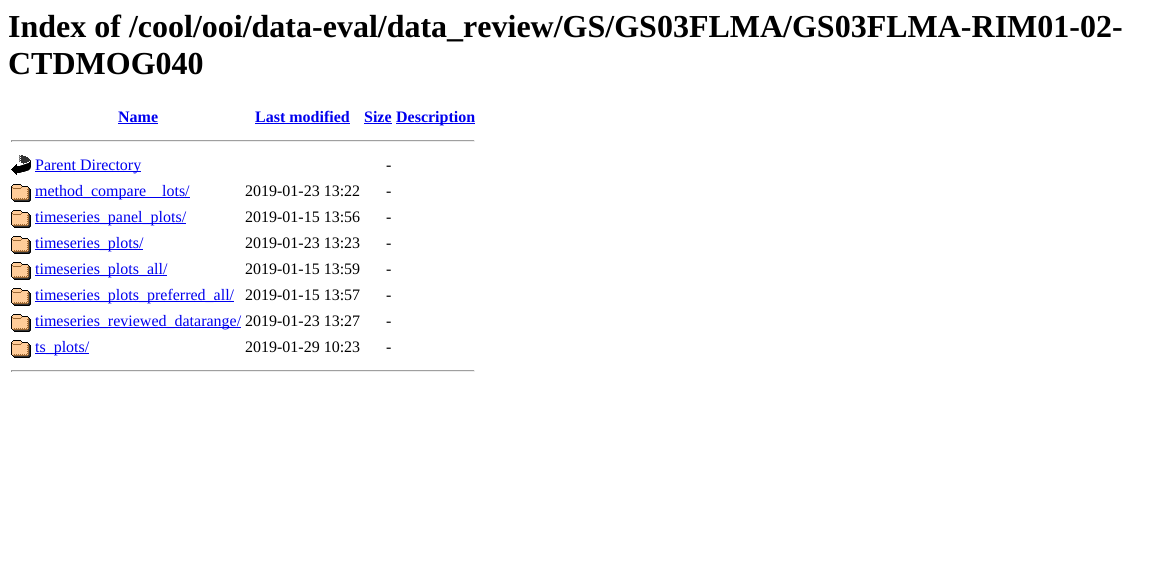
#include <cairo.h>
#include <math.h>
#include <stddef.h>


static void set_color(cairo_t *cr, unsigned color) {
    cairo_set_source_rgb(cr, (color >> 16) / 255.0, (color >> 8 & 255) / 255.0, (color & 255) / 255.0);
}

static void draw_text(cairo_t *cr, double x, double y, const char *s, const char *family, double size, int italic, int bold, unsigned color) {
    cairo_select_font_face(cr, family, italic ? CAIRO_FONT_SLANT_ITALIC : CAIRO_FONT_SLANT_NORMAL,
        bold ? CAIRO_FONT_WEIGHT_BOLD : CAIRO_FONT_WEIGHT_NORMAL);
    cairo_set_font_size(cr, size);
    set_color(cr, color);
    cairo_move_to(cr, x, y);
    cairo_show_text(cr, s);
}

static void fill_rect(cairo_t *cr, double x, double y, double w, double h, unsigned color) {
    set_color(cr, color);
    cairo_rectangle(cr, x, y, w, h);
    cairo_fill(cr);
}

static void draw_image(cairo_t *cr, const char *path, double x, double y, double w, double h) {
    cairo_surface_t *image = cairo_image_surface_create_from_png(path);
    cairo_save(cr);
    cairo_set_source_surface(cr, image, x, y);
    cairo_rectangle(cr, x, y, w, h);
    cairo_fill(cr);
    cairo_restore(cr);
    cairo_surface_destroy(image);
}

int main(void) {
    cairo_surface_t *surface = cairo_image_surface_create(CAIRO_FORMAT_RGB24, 1165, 563);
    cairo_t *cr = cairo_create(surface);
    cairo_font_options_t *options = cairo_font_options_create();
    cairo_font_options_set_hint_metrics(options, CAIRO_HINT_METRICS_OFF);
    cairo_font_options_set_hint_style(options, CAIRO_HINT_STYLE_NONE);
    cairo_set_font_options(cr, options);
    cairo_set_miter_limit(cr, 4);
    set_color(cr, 0xFFFFFF);
    cairo_paint(cr);
    draw_text(cr, 8, 37, "Index of /cool/ooi/data-eval/data_review/GS/GS03FLMA/GS03FLMA-RIM01-02-", "Liberation Serif", 32, 0, 1, 0x000000);
    draw_text(cr, 8, 74, "CTDMOG040", "Liberation Serif", 32, 0, 1, 0x000000);
    draw_text(cr, 118, 122, "Name", "Liberation Serif", 16, 0, 1, 0x0000EE);
    fill_rect(cr, 118, 123, 40, 1, 0x0000EE);
    draw_text(cr, 255, 122, "Last modified", "Liberation Serif", 16, 0, 1, 0x0000EE);
    fill_rect(cr, 255, 123, 95, 1, 0x0000EE);
    draw_text(cr, 364, 122, "Size", "Liberation Serif", 16, 0, 1, 0x0000EE);
    fill_rect(cr, 364, 123, 28, 1, 0x0000EE);
    fill_rect(cr, 396, 123, 79, 1, 0x0000EE);
    draw_text(cr, 396, 122, "Description", "Liberation Serif", 16, 0, 1, 0x0000EE);
    fill_rect(cr, 11, 140, 464, 1, 0x9F9F9F);
    fill_rect(cr, 474, 140, 1, 2, 0xEEEEEE);
    fill_rect(cr, 11, 141, 464, 1, 0xEEEEEE);
    fill_rect(cr, 11, 140, 1, 2, 0x9F9F9F);
    draw_image(cr, "assets/img1.png", 11, 155, 20, 20);
    fill_rect(cr, 35, 171, 106, 1, 0x0000EE);
    draw_text(cr, 35, 170, "Parent Directory", "Liberation Serif", 16, 0, 0, 0x0000EE);
    draw_text(cr, 386, 170, "-", "Liberation Serif", 16, 0, 0, 0x000000);
    draw_image(cr, "assets/img2.png", 11, 184, 20, 18);
    fill_rect(cr, 35, 197, 155, 1, 0x0000EE);
    draw_text(cr, 35, 196, "method_compare", "Liberation Serif", 16, 0, 0, 0x0000EE);
    draw_text(cr, 162, 196, "lots/", "Liberation Serif", 16, 0, 0, 0x0000EE);
    draw_text(cr, 245, 196, "2019-01-23 13:22", "Liberation Serif", 16, 0, 0, 0x000000);
    draw_text(cr, 386, 196, "-", "Liberation Serif", 16, 0, 0, 0x000000);
    draw_image(cr, "assets/img2.png", 11, 210, 20, 18);
    fill_rect(cr, 35, 223, 151, 1, 0x0000EE);
    draw_text(cr, 35, 222, "timeseries_panel_plots/", "Liberation Serif", 16, 0, 0, 0x0000EE);
    draw_text(cr, 245, 222, "2019-01-15 13:56", "Liberation Serif", 16, 0, 0, 0x000000);
    draw_text(cr, 386, 222, "-", "Liberation Serif", 16, 0, 0, 0x000000);
    draw_image(cr, "assets/img2.png", 11, 236, 20, 18);
    fill_rect(cr, 35, 249, 108, 1, 0x0000EE);
    draw_text(cr, 35, 248, "timeseries_plots/", "Liberation Serif", 16, 0, 0, 0x0000EE);
    draw_text(cr, 245, 248, "2019-01-23 13:23", "Liberation Serif", 16, 0, 0, 0x000000);
    draw_text(cr, 386, 248, "-", "Liberation Serif", 16, 0, 0, 0x000000);
    draw_image(cr, "assets/img2.png", 11, 262, 20, 18);
    fill_rect(cr, 35, 275, 132, 1, 0x0000EE);
    draw_text(cr, 35, 274, "timeseries_plots_all/", "Liberation Serif", 16, 0, 0, 0x0000EE);
    draw_text(cr, 245, 274, "2019-01-15 13:59", "Liberation Serif", 16, 0, 0, 0x000000);
    draw_text(cr, 386, 274, "-", "Liberation Serif", 16, 0, 0, 0x000000);
    draw_image(cr, "assets/img2.png", 11, 288, 20, 18);
    fill_rect(cr, 35, 301, 199, 1, 0x0000EE);
    draw_text(cr, 35, 300, "timeseries_plots_preferred_all/", "Liberation Serif", 16, 0, 0, 0x0000EE);
    draw_text(cr, 245, 300, "2019-01-15 13:57", "Liberation Serif", 16, 0, 0, 0x000000);
    draw_text(cr, 386, 300, "-", "Liberation Serif", 16, 0, 0, 0x000000);
    draw_image(cr, "assets/img2.png", 11, 314, 20, 18);
    fill_rect(cr, 35, 327, 206, 1, 0x0000EE);
    draw_text(cr, 35, 326, "timeseries_reviewed_datarange/", "Liberation Serif", 16, 0, 0, 0x0000EE);
    draw_text(cr, 245, 326, "2019-01-23 13:27", "Liberation Serif", 16, 0, 0, 0x000000);
    draw_text(cr, 386, 326, "-", "Liberation Serif", 16, 0, 0, 0x000000);
    draw_image(cr, "assets/img2.png", 11, 340, 20, 18);
    fill_rect(cr, 35, 353, 54, 1, 0x0000EE);
    draw_text(cr, 35, 352, "ts_plots/", "Liberation Serif", 16, 0, 0, 0x0000EE);
    draw_text(cr, 245, 352, "2019-01-29 10:23", "Liberation Serif", 16, 0, 0, 0x000000);
    draw_text(cr, 386, 352, "-", "Liberation Serif", 16, 0, 0, 0x000000);
    fill_rect(cr, 11, 370, 464, 1, 0x9F9F9F);
    fill_rect(cr, 474, 370, 1, 2, 0xEEEEEE);
    fill_rect(cr, 11, 371, 464, 1, 0xEEEEEE);
    fill_rect(cr, 11, 370, 1, 2, 0x9F9F9F);
    cairo_surface_write_to_png(surface, "output.png");
    cairo_font_options_destroy(options);
    cairo_destroy(cr);
    cairo_surface_destroy(surface);
    return 0;
}
